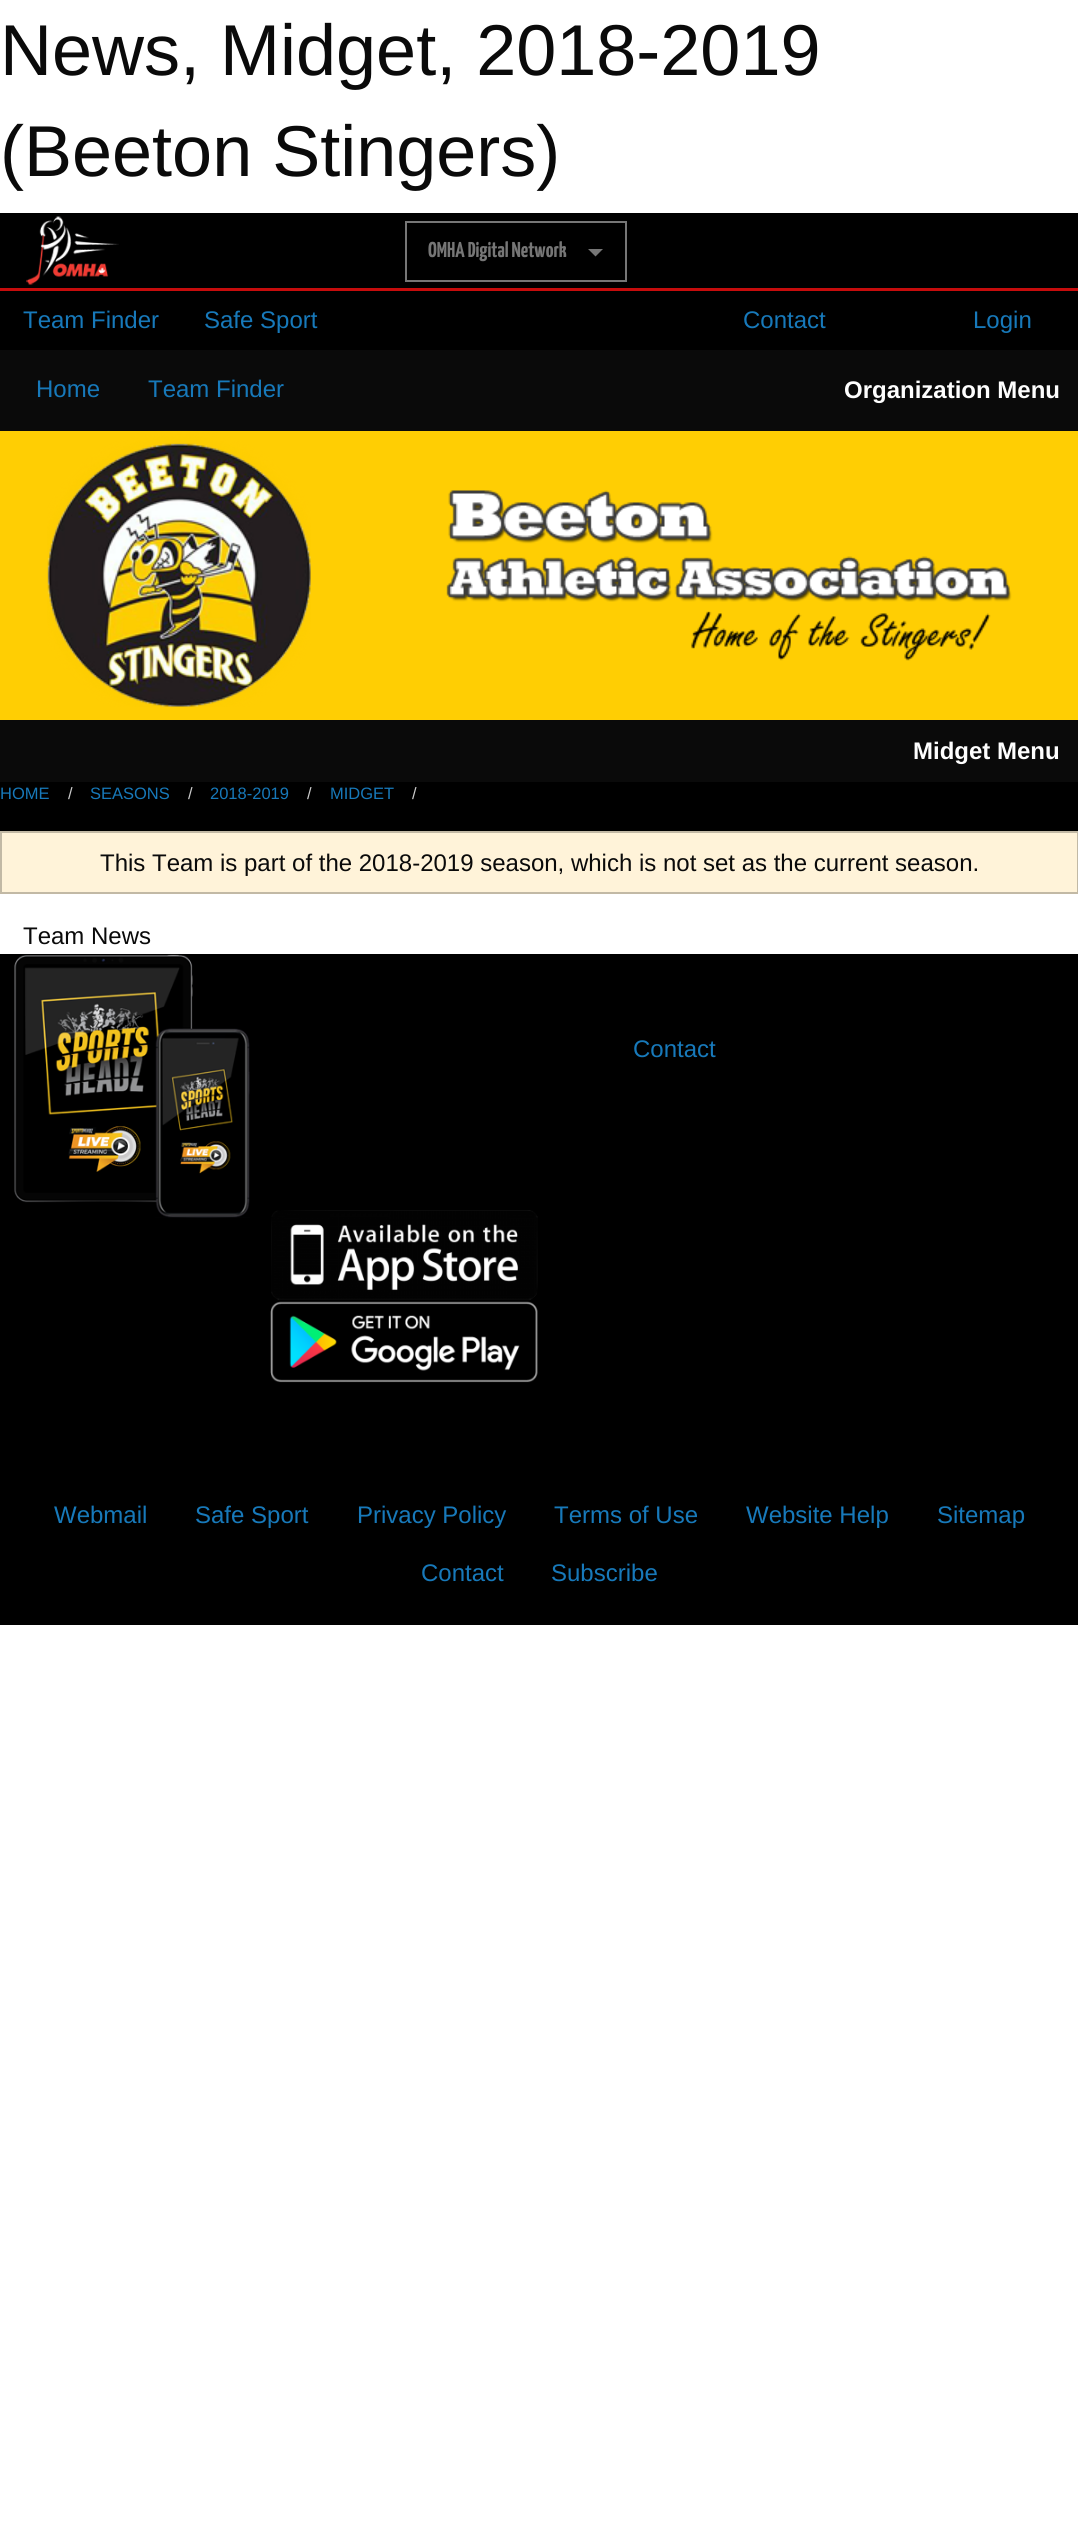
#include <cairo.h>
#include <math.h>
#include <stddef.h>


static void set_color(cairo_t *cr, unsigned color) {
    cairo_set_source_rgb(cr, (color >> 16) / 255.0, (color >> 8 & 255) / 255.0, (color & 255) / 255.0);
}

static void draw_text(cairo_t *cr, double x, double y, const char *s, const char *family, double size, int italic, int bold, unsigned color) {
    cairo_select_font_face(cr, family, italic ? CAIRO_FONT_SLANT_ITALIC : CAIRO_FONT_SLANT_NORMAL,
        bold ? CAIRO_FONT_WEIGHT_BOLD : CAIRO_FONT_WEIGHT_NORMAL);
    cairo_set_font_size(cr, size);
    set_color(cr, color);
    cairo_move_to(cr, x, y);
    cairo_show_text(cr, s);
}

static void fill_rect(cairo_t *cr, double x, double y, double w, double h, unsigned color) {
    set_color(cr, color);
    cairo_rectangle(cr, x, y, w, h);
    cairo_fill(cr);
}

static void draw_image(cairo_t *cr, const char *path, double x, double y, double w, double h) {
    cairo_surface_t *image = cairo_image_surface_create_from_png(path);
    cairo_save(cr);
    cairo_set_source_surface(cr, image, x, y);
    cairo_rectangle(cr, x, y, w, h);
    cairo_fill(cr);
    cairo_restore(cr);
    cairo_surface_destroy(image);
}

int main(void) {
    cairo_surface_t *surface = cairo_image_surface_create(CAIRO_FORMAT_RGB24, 1078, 2544);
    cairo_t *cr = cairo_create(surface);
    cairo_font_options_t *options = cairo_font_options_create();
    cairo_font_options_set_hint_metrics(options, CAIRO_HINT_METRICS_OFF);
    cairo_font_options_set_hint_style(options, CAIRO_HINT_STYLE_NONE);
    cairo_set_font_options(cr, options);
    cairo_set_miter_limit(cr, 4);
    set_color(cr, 0xFFFFFF);
    cairo_paint(cr);
    draw_text(cr, 0, 75, "News, Midget, 2018-2019", "Liberation Sans", 72, 0, 0, 0x0A0A0A);
    draw_text(cr, 0, 176, "(Beeton Stingers)", "Liberation Sans", 72, 0, 0, 0x0A0A0A);
    fill_rect(cr, 0, 213, 1078, 75, 0x000000);
    fill_rect(cr, 0, 288, 1078, 3, 0xC60C0C);
    draw_image(cr, "assets/img1.png", 26, 216, 93, 69);
    cairo_rectangle(cr, 406, 222, 220, 59);
    set_color(cr, 0x767676);
    cairo_stroke(cr);
    draw_text(cr, 428, 257, "OMHA Digital Network", "Yanone Kaffeesatz ExtraLight", 21.5, 0, 0, 0x767676);
    cairo_new_path(cr);
    cairo_move_to(cr, 588, 249);
    cairo_line_to(cr, 603, 249);
    cairo_line_to(cr, 595.5, 256.5);
    cairo_close_path(cr);
    cairo_fill(cr);
    fill_rect(cr, 0, 291, 1078, 1334, 0x000000);
    draw_text(cr, 23, 328, "Team Finder", "Liberation Sans", 24, 0, 0, 0x1779BA);
    draw_text(cr, 204, 328, "Safe Sport", "Liberation Sans", 24, 0, 0, 0x1779BA);
    draw_text(cr, 743, 328, "Contact", "Liberation Sans", 24, 0, 0, 0x1779BA);
    draw_text(cr, 973, 328, "Login", "Liberation Sans", 24, 0, 0, 0x1779BA);
    fill_rect(cr, 0, 350, 1078, 81, 0x0A0A0A);
    draw_text(cr, 36, 397, "Home", "Liberation Sans", 24, 0, 0, 0x1779BA);
    draw_text(cr, 148, 397, "Team Finder", "Liberation Sans", 24, 0, 0, 0x1779BA);
    draw_text(cr, 844, 398, "Organization Menu", "Liberation Sans", 24, 0, 1, 0xFEFEFE);
    fill_rect(cr, 0, 431, 1078, 289, 0xFFCE03);
    draw_image(cr, "assets/img2.png", 47, 430, 264, 277);
    draw_image(cr, "assets/img3.png", 446, 490, 566, 171);
    fill_rect(cr, 0, 720, 1078, 62, 0x0A0A0A);
    draw_text(cr, 913, 759, "Midget Menu", "Liberation Sans", 24, 0, 1, 0xFEFEFE);
    draw_text(cr, 0, 799, "HOME", "Liberation Sans", 16.5, 0, 0, 0x1779BA);
    draw_text(cr, 68, 799, "/", "Liberation Sans", 16.5, 0, 0, 0xCACACA);
    draw_text(cr, 90, 799, "SEASONS", "Liberation Sans", 16.5, 0, 0, 0x1779BA);
    draw_text(cr, 188, 799, "/", "Liberation Sans", 16.5, 0, 0, 0xCACACA);
    draw_text(cr, 210, 799, "2018-2019", "Liberation Sans", 16.5, 0, 0, 0x1779BA);
    draw_text(cr, 307, 799, "/", "Liberation Sans", 16.5, 0, 0, 0xCACACA);
    draw_text(cr, 330, 799, "MIDGET", "Liberation Sans", 16.5, 0, 0, 0x1779BA);
    draw_text(cr, 412, 799, "/", "Liberation Sans", 16.5, 0, 0, 0xCACACA);
    fill_rect(cr, 0, 894, 1078, 60, 0xFFFFFF);
    set_color(cr, 0xFFF3D9);
    cairo_rectangle(cr, 1, 832, 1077, 61);
    cairo_fill_preserve(cr);
    set_color(cr, 0xC2B9A5);
    cairo_stroke(cr);
    draw_text(cr, 100, 871, "This Team is part of the 2018-2019 season, which is not set as the current season.", "Liberation Sans", 24, 0, 0, 0x0A0A0A);
    draw_text(cr, 23, 944, "Team News", "Liberation Sans", 24, 0, 0, 0x0A0A0A);
    draw_image(cr, "assets/img4.png", 14, 954, 236, 264);
    draw_image(cr, "assets/img5.png", 271, 1210, 267, 90);
    draw_image(cr, "assets/img6.png", 270, 1301, 268, 82);
    draw_text(cr, 633, 1057, "Contact", "Liberation Sans", 24, 0, 0, 0x1779BA);
    draw_text(cr, 54, 1523, "Webmail", "Liberation Sans", 24, 0, 0, 0x1779BA);
    draw_text(cr, 195, 1523, "Safe Sport", "Liberation Sans", 24, 0, 0, 0x1779BA);
    draw_text(cr, 357, 1523, "Privacy Policy", "Liberation Sans", 24, 0, 0, 0x1779BA);
    draw_text(cr, 554, 1523, "Terms of Use", "Liberation Sans", 24, 0, 0, 0x1779BA);
    draw_text(cr, 746, 1523, "Website Help", "Liberation Sans", 24, 0, 0, 0x1779BA);
    draw_text(cr, 937, 1523, "Sitemap", "Liberation Sans", 24, 0, 0, 0x1779BA);
    draw_text(cr, 421, 1581, "Contact", "Liberation Sans", 24, 0, 0, 0x1779BA);
    draw_text(cr, 551, 1581, "Subscribe", "Liberation Sans", 24, 0, 0, 0x1779BA);
    cairo_surface_write_to_png(surface, "output.png");
    cairo_font_options_destroy(options);
    cairo_destroy(cr);
    cairo_surface_destroy(surface);
    return 0;
}
